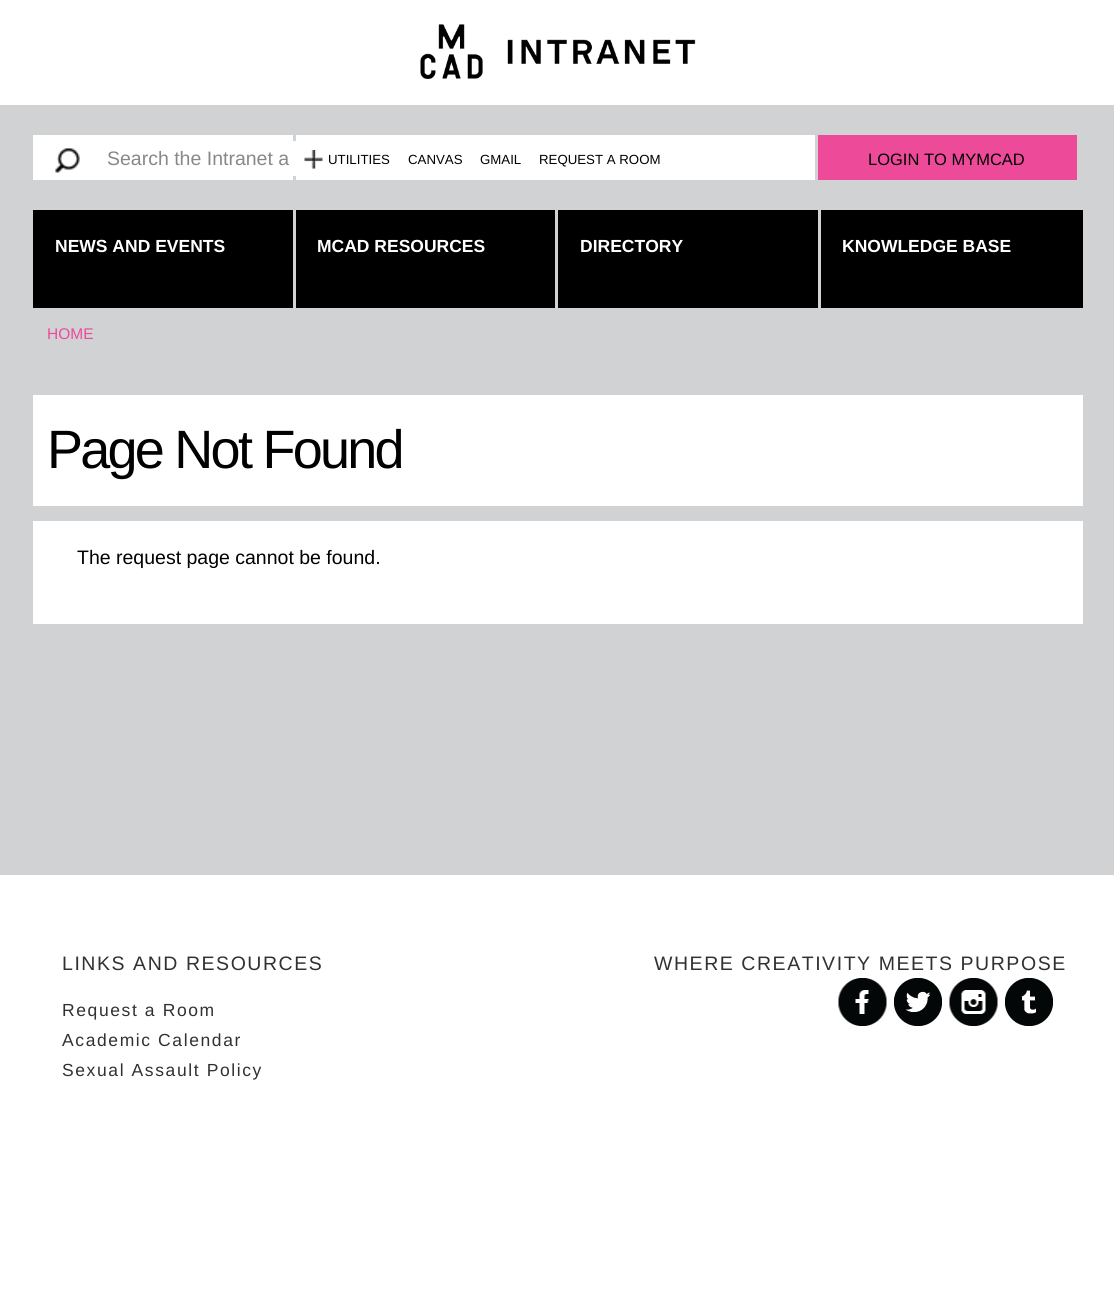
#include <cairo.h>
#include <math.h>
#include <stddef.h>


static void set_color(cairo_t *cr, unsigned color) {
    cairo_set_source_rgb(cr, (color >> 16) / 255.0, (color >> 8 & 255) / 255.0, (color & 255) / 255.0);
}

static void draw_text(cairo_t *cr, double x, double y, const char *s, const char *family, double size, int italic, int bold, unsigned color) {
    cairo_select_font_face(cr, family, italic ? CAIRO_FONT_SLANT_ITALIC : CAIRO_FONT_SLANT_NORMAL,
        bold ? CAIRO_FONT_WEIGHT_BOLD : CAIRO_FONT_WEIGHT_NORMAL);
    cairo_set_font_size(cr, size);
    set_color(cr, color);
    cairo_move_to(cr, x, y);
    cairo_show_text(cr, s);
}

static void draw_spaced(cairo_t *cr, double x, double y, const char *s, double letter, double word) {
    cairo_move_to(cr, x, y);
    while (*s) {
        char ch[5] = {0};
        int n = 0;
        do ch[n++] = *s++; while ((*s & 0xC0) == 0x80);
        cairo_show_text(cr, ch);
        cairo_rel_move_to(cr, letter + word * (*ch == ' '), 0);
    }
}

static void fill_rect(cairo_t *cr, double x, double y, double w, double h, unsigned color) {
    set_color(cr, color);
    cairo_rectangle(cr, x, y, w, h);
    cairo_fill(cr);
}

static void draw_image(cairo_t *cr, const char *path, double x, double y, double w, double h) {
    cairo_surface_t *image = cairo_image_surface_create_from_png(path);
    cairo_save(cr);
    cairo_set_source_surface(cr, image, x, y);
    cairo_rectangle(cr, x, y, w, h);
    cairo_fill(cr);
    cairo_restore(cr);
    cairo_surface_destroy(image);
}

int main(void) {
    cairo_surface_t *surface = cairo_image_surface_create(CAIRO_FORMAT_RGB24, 1114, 1297);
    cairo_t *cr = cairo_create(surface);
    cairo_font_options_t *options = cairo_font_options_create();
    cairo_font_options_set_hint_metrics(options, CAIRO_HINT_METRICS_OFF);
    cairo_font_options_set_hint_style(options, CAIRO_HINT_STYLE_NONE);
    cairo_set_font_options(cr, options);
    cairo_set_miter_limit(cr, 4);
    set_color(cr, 0xFFFFFF);
    cairo_paint(cr);
    fill_rect(cr, 0, 105, 1114, 770, 0xD1D2D4);
    draw_image(cr, "assets/img1.png", 420, 24, 276, 55);
    fill_rect(cr, 33, 135, 260, 45, 0xFFFFFF);
    fill_rect(cr, 293, 141, 3, 35, 0xFFFFFF);
    draw_image(cr, "assets/img2.png", 55, 148, 25, 25);
    draw_text(cr, 107, 165, "Search the Intranet a", "Liberation Sans", 19.5, 0, 0, 0x888888);
    fill_rect(cr, 296, 135, 519, 45, 0xFFFFFF);
    draw_image(cr, "assets/img3.png", 304, 150, 19, 19);
    draw_text(cr, 328, 164, "UTILITIES", "Liberation Sans", 13.25, 0, 0, 0x000000);
    draw_text(cr, 408, 164, "CANVAS", "Liberation Sans", 13.25, 0, 0, 0x000000);
    draw_text(cr, 480, 164, "GMAIL", "Liberation Sans", 13.25, 0, 0, 0x000000);
    draw_text(cr, 539, 164, "REQUEST A ROOM", "Liberation Sans", 13.25, 0, 0, 0x000000);
    fill_rect(cr, 818, 135, 259, 45, 0xEE4A9A);
    draw_text(cr, 868, 165, "LOGIN TO MYMCAD", "Liberation Sans", 16.5, 0, 0, 0x000000);
    fill_rect(cr, 33, 210, 260, 98, 0x000000);
    draw_text(cr, 55, 252, "NEWS AND EVENTS", "Liberation Sans", 17.5, 0, 1, 0xFFFFFF);
    fill_rect(cr, 296, 210, 259, 98, 0x000000);
    draw_text(cr, 317, 252, "MCAD RESOURCES", "Liberation Sans", 17.5, 0, 1, 0xFFFFFF);
    fill_rect(cr, 558, 210, 260, 98, 0x000000);
    draw_text(cr, 580, 252, "DIRECTORY", "Liberation Sans", 17.5, 0, 1, 0xFFFFFF);
    fill_rect(cr, 821, 210, 262, 98, 0x000000);
    draw_text(cr, 842, 252, "KNOWLEDGE BASE", "Liberation Sans", 17.5, 0, 1, 0xFFFFFF);
    draw_text(cr, 47, 339, "HOME", "Liberation Sans", 15.5, 0, 0, 0xEE4A9A);
    fill_rect(cr, 33, 395, 1050, 111, 0xFFFFFF);
    cairo_set_font_size(cr, 54);
    set_color(cr, 0x000000);
    draw_spaced(cr, 47, 468, "Page Not Found", -2.75, 0);
    fill_rect(cr, 33, 521, 1050, 103, 0xFFFFFF);
    draw_text(cr, 77, 564, "The request page cannot be found.", "Liberation Sans", 19.5, 0, 0, 0x000000);
    set_color(cr, 0x313131);
    draw_spaced(cr, 62, 970, "LINKS AND RESOURCES", 1.55, 0);
    cairo_set_font_size(cr, 17.5);
    draw_spaced(cr, 62, 1016, "Request a Room", 1.6, 0);
    draw_spaced(cr, 62, 1046, "Academic Calendar", 1.6, 0);
    draw_spaced(cr, 62, 1076, "Sexual Assault Policy", 1.6, 0);
    cairo_set_font_size(cr, 19.5);
    draw_spaced(cr, 654, 970, "WHERE CREATIVITY MEETS PURPOSE", 1.55, 0);
    draw_image(cr, "assets/img4.png", 838, 978, 49, 48);
    draw_image(cr, "assets/img5.png", 894, 978, 48, 48);
    draw_image(cr, "assets/img6.png", 949, 978, 49, 48);
    draw_image(cr, "assets/img7.png", 1005, 978, 48, 48);
    cairo_surface_write_to_png(surface, "output.png");
    cairo_font_options_destroy(options);
    cairo_destroy(cr);
    cairo_surface_destroy(surface);
    return 0;
}
